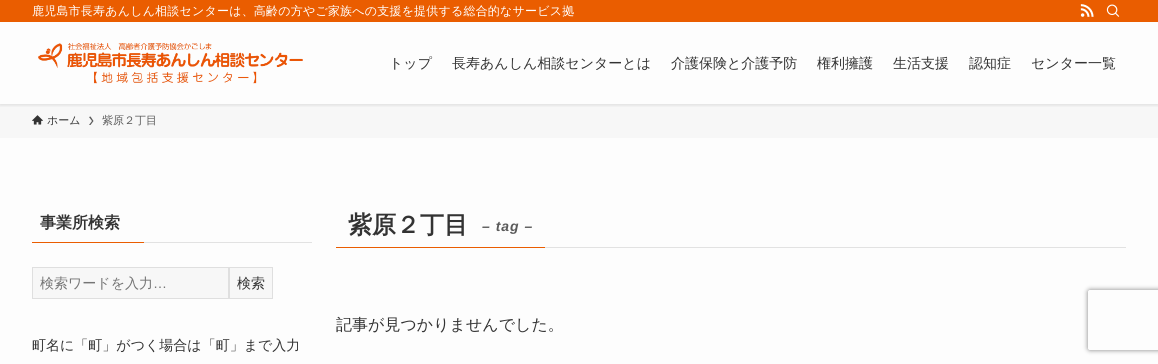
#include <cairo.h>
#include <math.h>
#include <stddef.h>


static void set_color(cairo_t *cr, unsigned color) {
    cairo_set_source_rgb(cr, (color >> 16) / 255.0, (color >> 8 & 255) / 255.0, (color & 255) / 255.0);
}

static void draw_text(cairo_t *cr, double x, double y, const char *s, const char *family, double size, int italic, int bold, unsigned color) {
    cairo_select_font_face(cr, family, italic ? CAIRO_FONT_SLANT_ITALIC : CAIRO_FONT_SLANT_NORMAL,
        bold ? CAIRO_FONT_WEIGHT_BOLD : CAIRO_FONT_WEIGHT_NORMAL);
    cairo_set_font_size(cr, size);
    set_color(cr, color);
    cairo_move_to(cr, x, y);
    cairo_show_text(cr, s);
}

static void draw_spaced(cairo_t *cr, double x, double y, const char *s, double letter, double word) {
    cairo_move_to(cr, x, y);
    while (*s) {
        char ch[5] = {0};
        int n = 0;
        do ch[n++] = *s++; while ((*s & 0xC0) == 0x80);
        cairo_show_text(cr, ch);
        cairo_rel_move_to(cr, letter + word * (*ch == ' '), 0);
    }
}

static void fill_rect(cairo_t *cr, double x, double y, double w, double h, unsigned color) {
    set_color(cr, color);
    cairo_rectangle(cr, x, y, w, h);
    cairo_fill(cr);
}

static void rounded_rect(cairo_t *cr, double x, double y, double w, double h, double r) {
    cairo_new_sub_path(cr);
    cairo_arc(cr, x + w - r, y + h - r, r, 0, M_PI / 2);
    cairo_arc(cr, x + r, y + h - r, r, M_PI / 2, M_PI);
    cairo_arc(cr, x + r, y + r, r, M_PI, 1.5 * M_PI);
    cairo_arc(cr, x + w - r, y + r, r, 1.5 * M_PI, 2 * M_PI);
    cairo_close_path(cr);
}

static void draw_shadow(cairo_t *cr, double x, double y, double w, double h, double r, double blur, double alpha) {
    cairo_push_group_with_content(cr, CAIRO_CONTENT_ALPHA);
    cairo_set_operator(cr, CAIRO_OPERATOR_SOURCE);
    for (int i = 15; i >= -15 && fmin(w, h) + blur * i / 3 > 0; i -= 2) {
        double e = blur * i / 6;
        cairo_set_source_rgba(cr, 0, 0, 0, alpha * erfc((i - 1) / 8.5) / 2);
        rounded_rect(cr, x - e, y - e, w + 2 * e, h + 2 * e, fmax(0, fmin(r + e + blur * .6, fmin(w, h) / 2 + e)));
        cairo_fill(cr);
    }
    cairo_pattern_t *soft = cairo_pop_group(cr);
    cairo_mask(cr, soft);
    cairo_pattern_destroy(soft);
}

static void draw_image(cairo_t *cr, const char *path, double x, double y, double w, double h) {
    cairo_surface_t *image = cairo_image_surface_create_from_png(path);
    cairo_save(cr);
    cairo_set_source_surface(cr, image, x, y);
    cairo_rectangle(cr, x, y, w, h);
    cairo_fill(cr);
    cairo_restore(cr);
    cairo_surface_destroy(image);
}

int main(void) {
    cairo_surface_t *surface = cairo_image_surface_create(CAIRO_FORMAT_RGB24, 1158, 364);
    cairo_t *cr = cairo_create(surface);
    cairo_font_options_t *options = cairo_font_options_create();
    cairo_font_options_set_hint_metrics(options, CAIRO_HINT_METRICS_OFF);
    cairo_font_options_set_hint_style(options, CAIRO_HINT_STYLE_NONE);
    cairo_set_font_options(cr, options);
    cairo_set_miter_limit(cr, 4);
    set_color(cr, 0xFDFDFD);
    cairo_paint(cr);
    fill_rect(cr, 0, 104, 1158, 34, 0xF7F7F7);
    cairo_save(cr);
    cairo_rectangle(cr, 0, 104, 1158, 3);
    cairo_clip(cr);
    set_color(cr, 0x000000);
    draw_shadow(cr, 0, 1, 1158, 104, 0, 2, 0.12);
    cairo_restore(cr);
    fill_rect(cr, 0, 0, 1158, 22, 0xEA5D00);
    cairo_select_font_face(cr, "WenQuanYi Zen Hei Medium", CAIRO_FONT_SLANT_NORMAL, CAIRO_FONT_WEIGHT_NORMAL);
    cairo_set_font_size(cr, 12);
    set_color(cr, 0xFFFFFF);
    draw_spaced(cr, 32, 15, "鹿児島市長寿あんしん相談センターは、高齢の方やご家族への支援を提供する総合的なサービス拠", 0.2, 0);
    draw_image(cr, "assets/img1.png", 1080, 4, 14, 13);
    draw_image(cr, "assets/img2.png", 1106, 4, 14, 13);
    draw_image(cr, "assets/img3.png", 38, 43, 265, 41);
    draw_text(cr, 389, 68, "トップ", "WenQuanYi Zen Hei Medium", 14, 0, 0, 0x333333);
    draw_text(cr, 452, 68, "長寿あんしん相談センターとは", "WenQuanYi Zen Hei Medium", 14, 0, 0, 0x333333);
    draw_text(cr, 671, 68, "介護保険と介護予防", "WenQuanYi Zen Hei Medium", 14, 0, 0, 0x333333);
    draw_text(cr, 817, 68, "権利擁護", "WenQuanYi Zen Hei Medium", 14, 0, 0, 0x333333);
    draw_text(cr, 893, 68, "生活支援", "WenQuanYi Zen Hei Medium", 14, 0, 0, 0x333333);
    draw_text(cr, 969, 68, "認知症", "WenQuanYi Zen Hei Medium", 14, 0, 0, 0x333333);
    draw_text(cr, 1031, 68, "センター一覧", "WenQuanYi Zen Hei Medium", 14, 0, 0, 0x333333);
    draw_image(cr, "assets/img4.png", 32, 115, 11, 10);
    draw_text(cr, 47, 124, "ホーム", "WenQuanYi Zen Hei Medium", 11, 0, 0, 0x333333);
    set_color(cr, 0x5A5A5A);
    cairo_new_path(cr);
    cairo_move_to(cr, 90.5, 116.5);
    cairo_line_to(cr, 89, 117);
    cairo_line_to(cr, 92, 121);
    cairo_line_to(cr, 89, 125);
    cairo_line_to(cr, 90.5, 125);
    cairo_line_to(cr, 93.5, 121);
    cairo_close_path(cr);
    cairo_fill(cr);
    draw_text(cr, 102, 124, "紫原２丁目", "WenQuanYi Zen Hei Medium", 11, 0, 0, 0x5A5A5A);
    draw_text(cr, 40, 228, "事業所検索", "WenQuanYi Zen Hei", 16, 0, 1, 0x333333);
    fill_rect(cr, 32, 242, 112, 1, 0xEA5D00);
    fill_rect(cr, 144, 242, 168, 1, 0xE2E2E2);
    set_color(cr, 0xF7F7F7);
    cairo_rectangle(cr, 32.5, 267.5, 196, 31);
    cairo_fill_preserve(cr);
    set_color(cr, 0xDFDFDF);
    cairo_set_line_width(cr, 1);
    cairo_stroke(cr);
    draw_text(cr, 40, 288, "検索ワードを入力", "WenQuanYi Zen Hei Medium", 14, 0, 0, 0x757575);
    draw_text(cr, 153, 288, "…", "Liberation Sans", 14, 0, 0, 0x757575);
    set_color(cr, 0xF7F7F7);
    cairo_rectangle(cr, 229.5, 267.5, 43, 31);
    cairo_fill_preserve(cr);
    set_color(cr, 0xDFDFDF);
    cairo_stroke(cr);
    draw_text(cr, 237, 288, "検索", "WenQuanYi Zen Hei Medium", 14, 0, 0, 0x333333);
    draw_text(cr, 32, 350, "町名に「町」がつく場合は「町」まで入力", "WenQuanYi Zen Hei Medium", 14, 0, 0, 0x333333);
    fill_rect(cr, 545, 247, 581, 1, 0xE2E2E2);
    fill_rect(cr, 336, 247, 209, 1, 0xEA5D00);
    draw_text(cr, 348, 233, "紫原２丁目", "WenQuanYi Zen Hei", 24, 0, 1, 0x333333);
    cairo_select_font_face(cr, "Liberation Sans", CAIRO_FONT_SLANT_ITALIC, CAIRO_FONT_WEIGHT_BOLD);
    cairo_set_font_size(cr, 14);
    set_color(cr, 0x5A5A5A);
    draw_spaced(cr, 482, 231, "– tag –", 1, 0);
    draw_text(cr, 336, 330, "記事が見つかりませんでした。", "WenQuanYi Zen Hei Medium", 16, 0, 0, 0x333333);
    cairo_save(cr);
    cairo_set_fill_rule(cr, CAIRO_FILL_RULE_EVEN_ODD);
    cairo_new_path(cr);
    cairo_move_to(cr, 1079, 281);
    cairo_line_to(cr, 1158, 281);
    cairo_line_to(cr, 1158, 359);
    cairo_line_to(cr, 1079, 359);
    cairo_close_path(cr);
    cairo_move_to(cr, 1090, 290);
    cairo_line_to(cr, 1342, 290);
    cairo_curve_to(cr, 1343, 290, 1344, 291, 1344, 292);
    cairo_line_to(cr, 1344, 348);
    cairo_curve_to(cr, 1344, 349, 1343, 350, 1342, 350);
    cairo_line_to(cr, 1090, 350);
    cairo_curve_to(cr, 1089, 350, 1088, 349, 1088, 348);
    cairo_line_to(cr, 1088, 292);
    cairo_curve_to(cr, 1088, 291, 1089, 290, 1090, 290);
    cairo_close_path(cr);
    cairo_clip(cr);
    set_color(cr, 0x808080);
    draw_shadow(cr, 1088, 290, 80, 60, 2, 2.5, 1);
    cairo_restore(cr);
    cairo_surface_write_to_png(surface, "output.png");
    cairo_font_options_destroy(options);
    cairo_destroy(cr);
    cairo_surface_destroy(surface);
    return 0;
}
